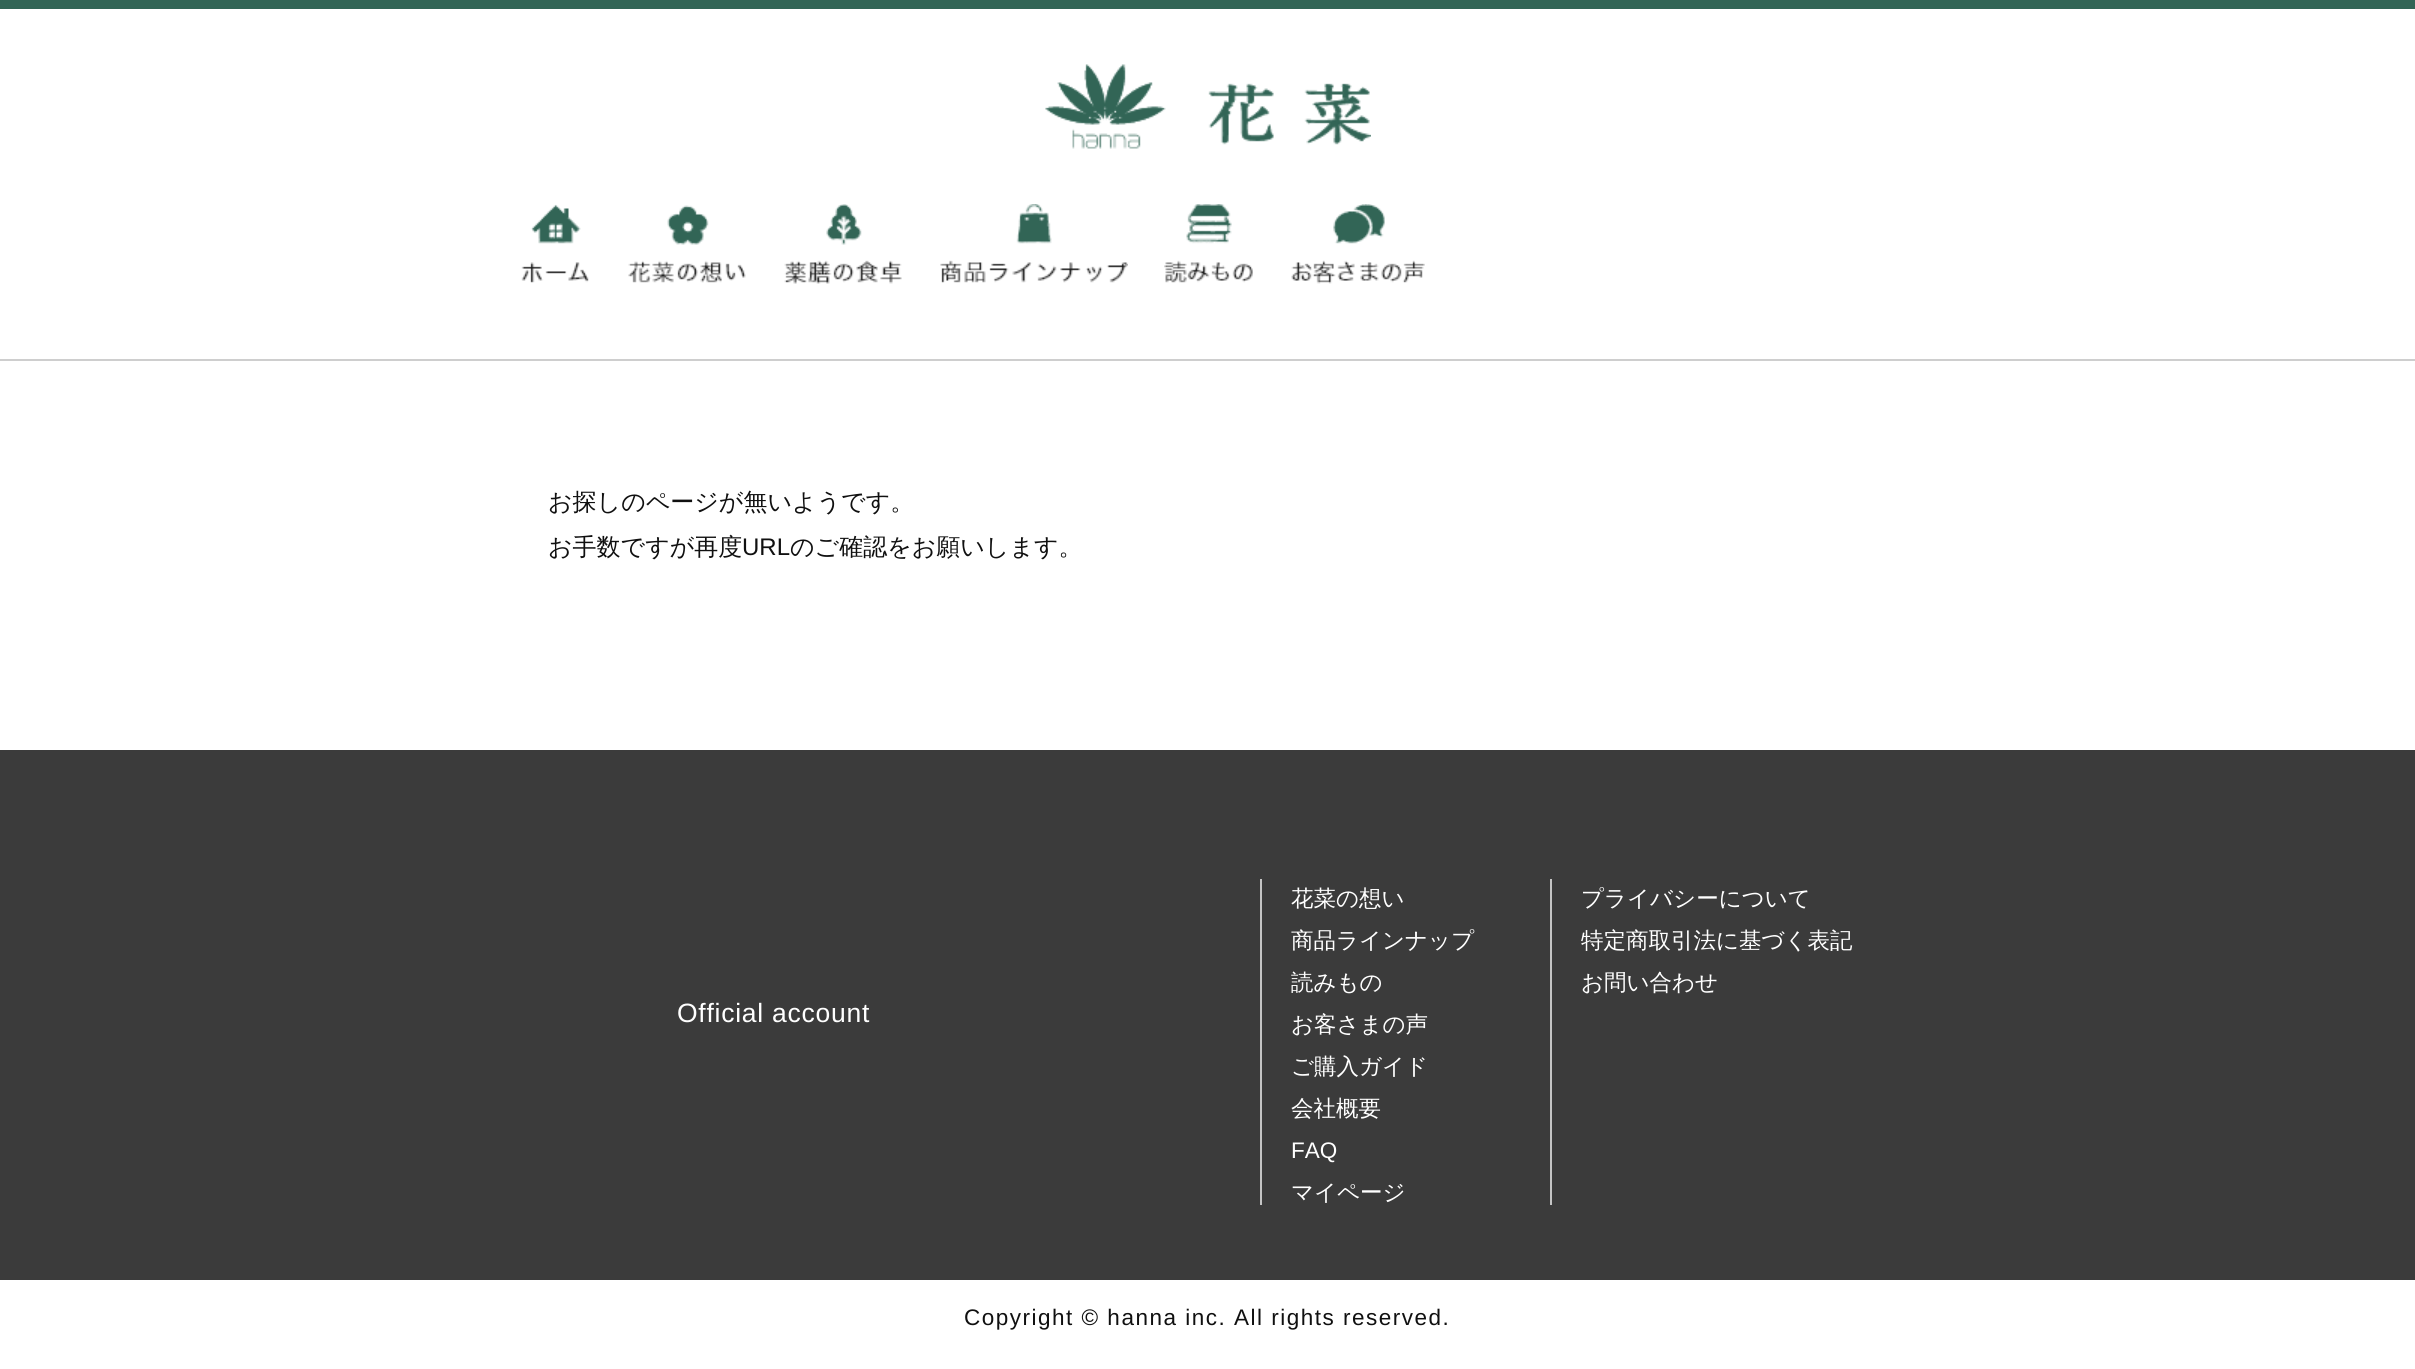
#include <cairo.h>
#include <math.h>
#include <stddef.h>


static void set_color(cairo_t *cr, unsigned color) {
    cairo_set_source_rgb(cr, (color >> 16) / 255.0, (color >> 8 & 255) / 255.0, (color & 255) / 255.0);
}

static void draw_text(cairo_t *cr, double x, double y, const char *s, const char *family, double size, int italic, int bold, unsigned color) {
    cairo_select_font_face(cr, family, italic ? CAIRO_FONT_SLANT_ITALIC : CAIRO_FONT_SLANT_NORMAL,
        bold ? CAIRO_FONT_WEIGHT_BOLD : CAIRO_FONT_WEIGHT_NORMAL);
    cairo_set_font_size(cr, size);
    set_color(cr, color);
    cairo_move_to(cr, x, y);
    cairo_show_text(cr, s);
}

static void draw_spaced(cairo_t *cr, double x, double y, const char *s, double letter, double word) {
    cairo_move_to(cr, x, y);
    while (*s) {
        char ch[5] = {0};
        int n = 0;
        do ch[n++] = *s++; while ((*s & 0xC0) == 0x80);
        cairo_show_text(cr, ch);
        cairo_rel_move_to(cr, letter + word * (*ch == ' '), 0);
    }
}

static void fill_rect(cairo_t *cr, double x, double y, double w, double h, unsigned color) {
    set_color(cr, color);
    cairo_rectangle(cr, x, y, w, h);
    cairo_fill(cr);
}

static void draw_image(cairo_t *cr, const char *path, double x, double y, double w, double h) {
    cairo_surface_t *image = cairo_image_surface_create_from_png(path);
    cairo_save(cr);
    cairo_set_source_surface(cr, image, x, y);
    cairo_rectangle(cr, x, y, w, h);
    cairo_fill(cr);
    cairo_restore(cr);
    cairo_surface_destroy(image);
}

int main(void) {
    cairo_surface_t *surface = cairo_image_surface_create(CAIRO_FORMAT_RGB24, 2415, 1369);
    cairo_t *cr = cairo_create(surface);
    cairo_font_options_t *options = cairo_font_options_create();
    cairo_font_options_set_hint_metrics(options, CAIRO_HINT_METRICS_OFF);
    cairo_font_options_set_hint_style(options, CAIRO_HINT_STYLE_NONE);
    cairo_set_font_options(cr, options);
    cairo_set_miter_limit(cr, 4);
    set_color(cr, 0xFFFFFF);
    cairo_paint(cr);
    fill_rect(cr, 0, 0, 2415, 9, 0x326556);
    fill_rect(cr, 0, 359, 2415, 2, 0xCECECE);
    draw_image(cr, "assets/img1.png", 1045, 64, 326, 85);
    draw_image(cr, "assets/img2.png", 521, 204, 68, 79);
    draw_image(cr, "assets/img3.png", 628, 205, 118, 78);
    draw_image(cr, "assets/img4.png", 784, 204, 118, 80);
    draw_image(cr, "assets/img5.png", 940, 204, 188, 79);
    draw_image(cr, "assets/img6.png", 1164, 204, 89, 79);
    draw_image(cr, "assets/img7.png", 1291, 204, 134, 80);
    draw_text(cr, 548, 510, "お探しのページが無いようです。", "WenQuanYi Zen Hei Medium", 24, 0, 0, 0x101010);
    draw_text(cr, 548, 555, "お手数ですが再度", "WenQuanYi Zen Hei Medium", 24, 0, 0, 0x101010);
    draw_text(cr, 742, 555, "URL", "Liberation Sans", 24, 0, 0, 0x101010);
    draw_text(cr, 790, 555, "のご確認をお願いします。", "WenQuanYi Zen Hei Medium", 24, 0, 0, 0x101010);
    fill_rect(cr, 0, 750, 2415, 530, 0x3B3B3B);
    cairo_select_font_face(cr, "Liberation Sans", CAIRO_FONT_SLANT_NORMAL, CAIRO_FONT_WEIGHT_NORMAL);
    cairo_set_font_size(cr, 26.5);
    set_color(cr, 0xFFFFFF);
    draw_spaced(cr, 677, 1022, "Official account", 0.75, 0);
    fill_rect(cr, 1260, 879, 2, 326, 0xC4C4C4);
    draw_text(cr, 1291, 906, "花菜の想い", "WenQuanYi Zen Hei Medium", 22.5, 0, 0, 0xFFFFFF);
    draw_text(cr, 1291, 948, "商品ラインナップ", "WenQuanYi Zen Hei Medium", 22.5, 0, 0, 0xFFFFFF);
    draw_text(cr, 1291, 990, "読みもの", "WenQuanYi Zen Hei Medium", 22.5, 0, 0, 0xFFFFFF);
    draw_text(cr, 1291, 1032, "お客さまの声", "WenQuanYi Zen Hei Medium", 22.5, 0, 0, 0xFFFFFF);
    draw_text(cr, 1291, 1074, "ご購入ガイド", "WenQuanYi Zen Hei Medium", 22.5, 0, 0, 0xFFFFFF);
    draw_text(cr, 1291, 1116, "会社概要", "WenQuanYi Zen Hei Medium", 22.5, 0, 0, 0xFFFFFF);
    draw_text(cr, 1291, 1158, "FAQ", "Liberation Sans", 22.5, 0, 0, 0xFFFFFF);
    draw_text(cr, 1291, 1200, "マイページ", "WenQuanYi Zen Hei Medium", 22.5, 0, 0, 0xFFFFFF);
    fill_rect(cr, 1550, 879, 2, 326, 0xC4C4C4);
    draw_text(cr, 1581, 906, "プライバシーについて", "WenQuanYi Zen Hei Medium", 22.5, 0, 0, 0xFFFFFF);
    draw_text(cr, 1581, 948, "特定商取引法に基づく表記", "WenQuanYi Zen Hei Medium", 22.5, 0, 0, 0xFFFFFF);
    draw_text(cr, 1581, 990, "お問い合わせ", "WenQuanYi Zen Hei Medium", 22.5, 0, 0, 0xFFFFFF);
    cairo_select_font_face(cr, "Liberation Sans", CAIRO_FONT_SLANT_NORMAL, CAIRO_FONT_WEIGHT_NORMAL);
    set_color(cr, 0x101010);
    draw_spaced(cr, 964, 1325, "Copyright © hanna inc. All rights reserved.", 1.5, 0);
    cairo_surface_write_to_png(surface, "output.png");
    cairo_font_options_destroy(options);
    cairo_destroy(cr);
    cairo_surface_destroy(surface);
    return 0;
}
